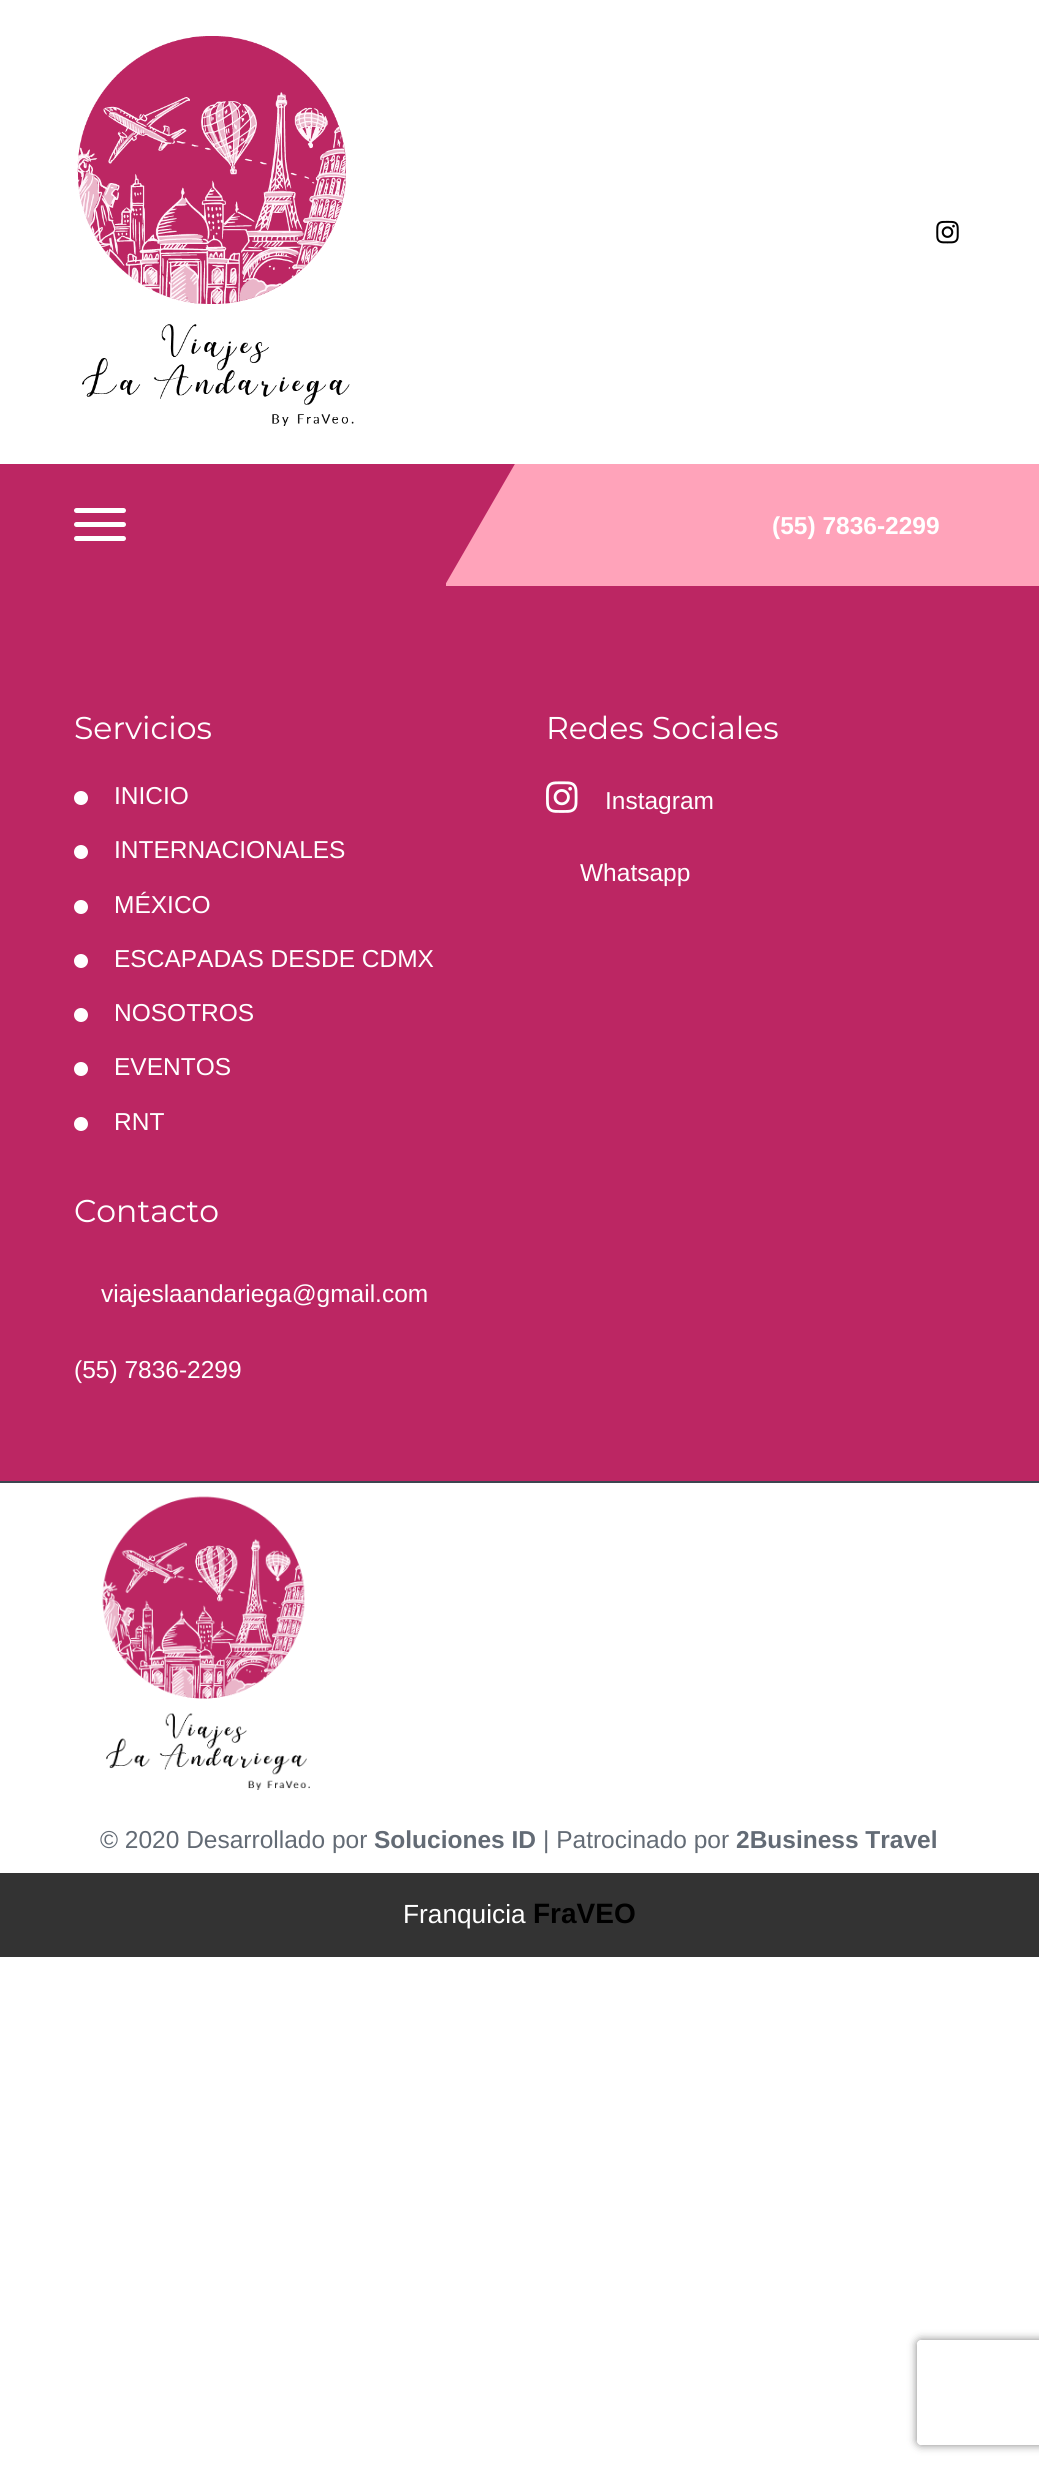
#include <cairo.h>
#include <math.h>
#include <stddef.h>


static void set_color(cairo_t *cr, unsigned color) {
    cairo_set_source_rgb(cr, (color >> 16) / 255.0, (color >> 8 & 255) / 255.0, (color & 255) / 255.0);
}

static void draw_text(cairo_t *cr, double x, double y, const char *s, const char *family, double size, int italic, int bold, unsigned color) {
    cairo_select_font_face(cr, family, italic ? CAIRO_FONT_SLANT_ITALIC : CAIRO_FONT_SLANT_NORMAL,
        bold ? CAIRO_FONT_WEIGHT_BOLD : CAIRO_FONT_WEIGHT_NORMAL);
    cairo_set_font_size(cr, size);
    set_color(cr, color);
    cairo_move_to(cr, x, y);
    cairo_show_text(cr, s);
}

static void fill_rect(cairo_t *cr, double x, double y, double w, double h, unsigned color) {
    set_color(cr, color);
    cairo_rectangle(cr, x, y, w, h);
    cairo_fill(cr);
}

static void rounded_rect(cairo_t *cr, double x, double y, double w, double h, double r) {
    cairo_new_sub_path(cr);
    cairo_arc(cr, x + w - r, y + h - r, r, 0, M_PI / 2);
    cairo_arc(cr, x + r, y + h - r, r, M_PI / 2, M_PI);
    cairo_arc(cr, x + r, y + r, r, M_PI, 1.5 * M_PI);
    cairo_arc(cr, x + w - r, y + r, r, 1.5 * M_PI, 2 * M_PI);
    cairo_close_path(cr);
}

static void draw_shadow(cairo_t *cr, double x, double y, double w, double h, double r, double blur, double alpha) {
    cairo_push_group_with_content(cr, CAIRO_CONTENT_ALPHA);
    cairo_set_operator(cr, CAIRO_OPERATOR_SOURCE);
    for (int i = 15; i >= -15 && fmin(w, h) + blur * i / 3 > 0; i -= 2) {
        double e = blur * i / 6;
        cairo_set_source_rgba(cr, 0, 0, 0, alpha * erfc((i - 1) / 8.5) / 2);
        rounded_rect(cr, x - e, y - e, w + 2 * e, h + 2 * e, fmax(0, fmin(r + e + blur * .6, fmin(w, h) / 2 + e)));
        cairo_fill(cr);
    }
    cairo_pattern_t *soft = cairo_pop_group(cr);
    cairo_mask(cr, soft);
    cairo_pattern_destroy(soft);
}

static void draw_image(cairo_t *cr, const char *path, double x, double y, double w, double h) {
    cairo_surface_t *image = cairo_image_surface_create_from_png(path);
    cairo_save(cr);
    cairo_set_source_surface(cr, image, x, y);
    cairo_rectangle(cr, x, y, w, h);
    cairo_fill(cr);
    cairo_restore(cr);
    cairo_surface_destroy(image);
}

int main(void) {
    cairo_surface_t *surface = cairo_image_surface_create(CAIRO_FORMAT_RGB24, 1039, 2468);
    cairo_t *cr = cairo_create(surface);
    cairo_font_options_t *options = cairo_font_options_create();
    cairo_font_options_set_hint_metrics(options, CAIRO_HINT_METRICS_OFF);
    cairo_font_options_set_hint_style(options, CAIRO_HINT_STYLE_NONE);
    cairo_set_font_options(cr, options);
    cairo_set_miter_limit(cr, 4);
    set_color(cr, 0xFFFFFF);
    cairo_paint(cr);
    draw_image(cr, "assets/img1.png", 77, 36, 277, 390);
    draw_image(cr, "assets/img2.png", 936, 220, 23, 24);
    fill_rect(cr, 966, 464, 73, 122, 0xFFA3BA);
    fill_rect(cr, 0, 464, 515, 122, 0xBC2663);
    set_color(cr, 0xFFFFFF);
    rounded_rect(cr, 74, 508, 52, 5, 2.5);
    cairo_fill(cr);
    rounded_rect(cr, 74, 522, 52, 5, 2.5);
    cairo_fill(cr);
    rounded_rect(cr, 74, 536, 52, 5, 2.5);
    cairo_fill(cr);
    cairo_save(cr);
    cairo_rectangle(cr, 446, 464, 520, 122);
    cairo_clip(cr);
    set_color(cr, 0xFFA3BA);
    cairo_new_path(cr);
    cairo_move_to(cr, 557, 391);
    cairo_line_to(cr, 1008, 651);
    cairo_line_to(cr, 855, 917);
    cairo_line_to(cr, 404, 656);
    cairo_close_path(cr);
    cairo_fill(cr);
    cairo_restore(cr);
    fill_rect(cr, 683, 464, 283, 122, 0xFFA3BA);
    draw_text(cr, 772, 534, "(55) 7836-2299", "Liberation Sans", 24.5, 0, 1, 0xFFFFFF);
    fill_rect(cr, 0, 586, 1039, 895, 0xBC2663);
    draw_text(cr, 74, 739, "Servicios", "Montserrat", 31.5, 0, 0, 0xFFFFFF);
    cairo_new_path(cr);
    cairo_arc(cr, 81, 798, 7, 0, 2 * M_PI);
    cairo_fill(cr);
    draw_text(cr, 114, 804, "INICIO", "Liberation Sans", 24.5, 0, 0, 0xFFFFFF);
    cairo_new_path(cr);
    cairo_arc(cr, 81, 852, 7, 0, 2 * M_PI);
    cairo_fill(cr);
    draw_text(cr, 114, 858, "INTERNACIONALES", "Liberation Sans", 24.5, 0, 0, 0xFFFFFF);
    cairo_new_path(cr);
    cairo_arc(cr, 81, 907, 7, 0, 2 * M_PI);
    cairo_fill(cr);
    draw_text(cr, 114, 913, "MÉXICO", "Liberation Sans", 24.5, 0, 0, 0xFFFFFF);
    cairo_new_path(cr);
    cairo_arc(cr, 81, 961, 7, 0, 2 * M_PI);
    cairo_fill(cr);
    draw_text(cr, 114, 967, "ESCAPADAS DESDE CDMX", "Liberation Sans", 24.5, 0, 0, 0xFFFFFF);
    cairo_new_path(cr);
    cairo_arc(cr, 81, 1015, 7, 0, 2 * M_PI);
    cairo_fill(cr);
    draw_text(cr, 114, 1021, "NOSOTROS", "Liberation Sans", 24.5, 0, 0, 0xFFFFFF);
    cairo_new_path(cr);
    cairo_arc(cr, 81, 1069, 7, 0, 2 * M_PI);
    cairo_fill(cr);
    draw_text(cr, 114, 1075, "EVENTOS", "Liberation Sans", 24.5, 0, 0, 0xFFFFFF);
    cairo_new_path(cr);
    cairo_arc(cr, 81, 1124, 7, 0, 2 * M_PI);
    cairo_fill(cr);
    draw_text(cr, 114, 1130, "RNT", "Liberation Sans", 24.5, 0, 0, 0xFFFFFF);
    draw_text(cr, 546, 739, "Redes Sociales", "Montserrat", 31.5, 0, 0, 0xFFFFFF);
    draw_image(cr, "assets/img3.png", 546, 781, 32, 32);
    draw_text(cr, 605, 809, "Instagram", "Liberation Sans", 24.5, 0, 0, 0xFFFFFF);
    draw_text(cr, 580, 881, "Whatsapp", "Liberation Sans", 24.5, 0, 0, 0xFFFFFF);
    draw_text(cr, 74, 1222, "Contacto", "Montserrat", 31.5, 0, 0, 0xFFFFFF);
    draw_text(cr, 101, 1302, "viajeslaandariega@gmail.com", "Liberation Sans", 24.5, 0, 0, 0xFFFFFF);
    draw_text(cr, 74, 1378, "(55) 7836-2299", "Liberation Sans", 24.5, 0, 0, 0xFFFFFF);
    fill_rect(cr, 0, 1481, 1039, 2, 0x3C4450);
    draw_image(cr, "assets/img4.png", 102, 1496, 208, 294);
    draw_text(cr, 100, 1848, "© 2020 Desarrollado por", "Liberation Sans", 24.5, 0, 0, 0x636B75);
    draw_text(cr, 374, 1848, "Soluciones ID", "Liberation Sans", 24.5, 0, 1, 0x636B75);
    draw_text(cr, 543, 1848, "| Patrocinado por", "Liberation Sans", 24.5, 0, 0, 0x636B75);
    draw_text(cr, 736, 1848, "2Business Travel", "Liberation Sans", 24.5, 0, 1, 0x636B75);
    fill_rect(cr, 0, 1873, 1039, 84, 0x333333);
    draw_text(cr, 403, 1923, "Franquicia", "Liberation Sans", 26.25, 0, 0, 0xFFFFFF);
    draw_text(cr, 533, 1923, "FraVEO", "Liberation Sans", 28, 0, 1, 0x000000);
    cairo_save(cr);
    cairo_set_fill_rule(cr, CAIRO_FILL_RULE_EVEN_ODD);
    cairo_new_path(cr);
    cairo_move_to(cr, 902, 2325);
    cairo_line_to(cr, 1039, 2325);
    cairo_line_to(cr, 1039, 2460);
    cairo_line_to(cr, 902, 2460);
    cairo_close_path(cr);
    cairo_move_to(cr, 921, 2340);
    cairo_line_to(cr, 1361, 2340);
    cairo_curve_to(cr, 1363, 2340, 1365, 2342, 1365, 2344);
    cairo_line_to(cr, 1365, 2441);
    cairo_curve_to(cr, 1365, 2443, 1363, 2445, 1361, 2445);
    cairo_line_to(cr, 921, 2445);
    cairo_curve_to(cr, 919, 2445, 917, 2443, 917, 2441);
    cairo_line_to(cr, 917, 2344);
    cairo_curve_to(cr, 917, 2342, 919, 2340, 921, 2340);
    cairo_close_path(cr);
    cairo_clip(cr);
    set_color(cr, 0x808080);
    draw_shadow(cr, 917, 2340, 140, 105, 4, 4.5, 1);
    cairo_restore(cr);
    cairo_surface_write_to_png(surface, "output.png");
    cairo_font_options_destroy(options);
    cairo_destroy(cr);
    cairo_surface_destroy(surface);
    return 0;
}
